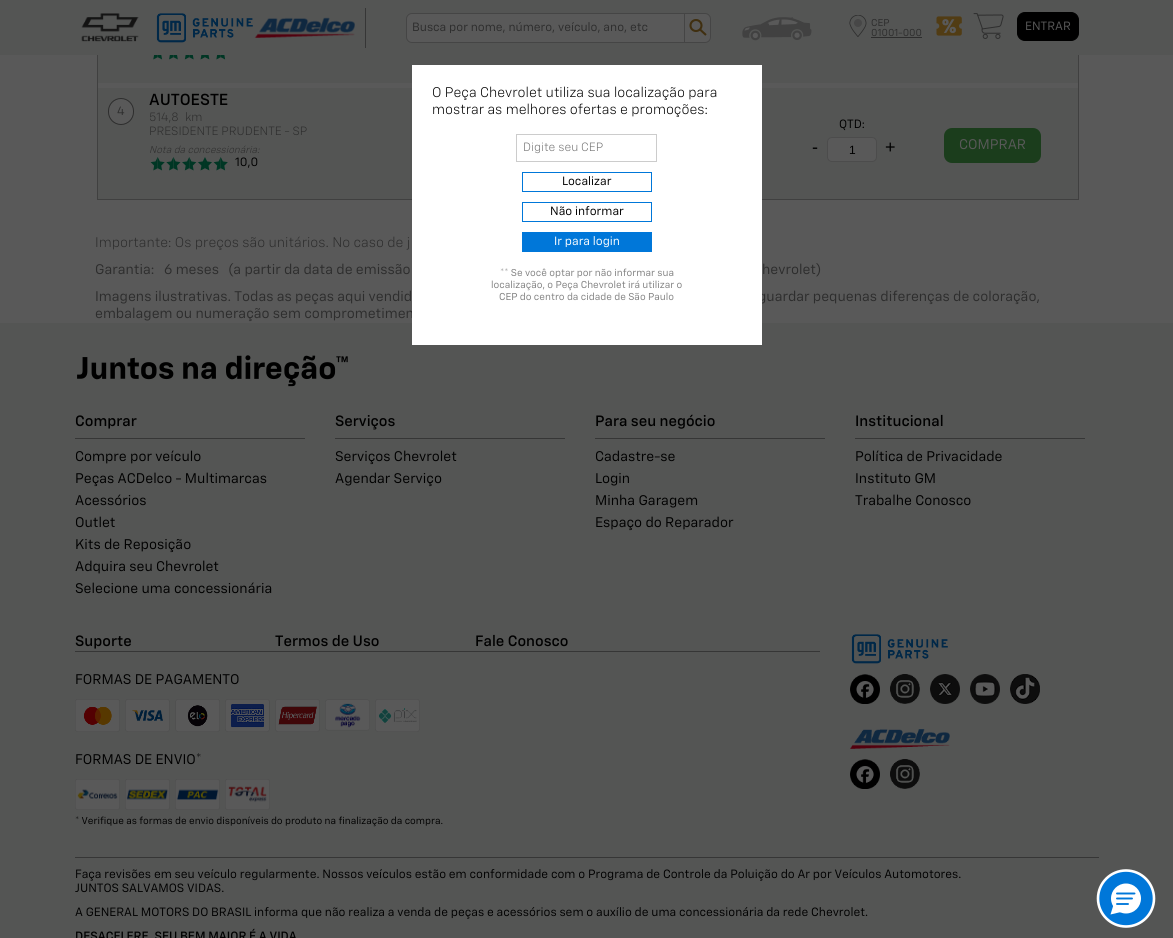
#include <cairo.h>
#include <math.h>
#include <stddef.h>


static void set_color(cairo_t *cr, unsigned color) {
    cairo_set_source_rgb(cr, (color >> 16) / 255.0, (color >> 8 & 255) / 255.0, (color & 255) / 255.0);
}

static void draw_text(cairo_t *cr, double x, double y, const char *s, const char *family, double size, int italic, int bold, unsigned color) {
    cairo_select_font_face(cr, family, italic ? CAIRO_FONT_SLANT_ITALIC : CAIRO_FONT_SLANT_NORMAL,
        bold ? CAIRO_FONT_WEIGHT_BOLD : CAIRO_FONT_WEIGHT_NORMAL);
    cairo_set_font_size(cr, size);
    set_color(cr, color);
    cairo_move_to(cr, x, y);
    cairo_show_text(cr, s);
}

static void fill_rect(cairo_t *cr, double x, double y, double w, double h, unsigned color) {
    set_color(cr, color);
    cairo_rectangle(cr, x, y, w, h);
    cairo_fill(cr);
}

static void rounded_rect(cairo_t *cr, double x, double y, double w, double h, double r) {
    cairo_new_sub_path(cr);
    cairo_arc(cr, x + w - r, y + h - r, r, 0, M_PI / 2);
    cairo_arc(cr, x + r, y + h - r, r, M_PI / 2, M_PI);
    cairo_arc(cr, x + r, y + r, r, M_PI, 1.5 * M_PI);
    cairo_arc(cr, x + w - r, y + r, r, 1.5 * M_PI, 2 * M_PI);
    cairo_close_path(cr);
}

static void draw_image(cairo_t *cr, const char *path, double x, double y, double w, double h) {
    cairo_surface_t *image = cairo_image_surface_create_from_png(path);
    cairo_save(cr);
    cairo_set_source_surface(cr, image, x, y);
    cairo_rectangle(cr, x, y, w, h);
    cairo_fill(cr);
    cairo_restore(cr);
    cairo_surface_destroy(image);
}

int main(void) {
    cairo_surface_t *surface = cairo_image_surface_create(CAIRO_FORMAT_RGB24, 1173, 938);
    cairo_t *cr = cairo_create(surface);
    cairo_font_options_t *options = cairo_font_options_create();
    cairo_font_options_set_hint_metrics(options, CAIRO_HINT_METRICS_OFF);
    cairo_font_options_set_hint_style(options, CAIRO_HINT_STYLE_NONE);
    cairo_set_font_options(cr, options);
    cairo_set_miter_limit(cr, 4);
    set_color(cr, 0x595959);
    cairo_paint(cr);
    cairo_rectangle(cr, 97.5, -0.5, 981, 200);
    set_color(cr, 0x404040);
    cairo_set_line_width(cr, 1);
    cairo_stroke(cr);
    fill_rect(cr, 0, 0, 1173, 55, 0x545554);
    draw_image(cr, "assets/img1.png", 81, 13, 58, 29);
    draw_image(cr, "assets/img2.png", 156, 13, 97, 30);
    draw_image(cr, "assets/img3.png", 254, 17, 101, 21);
    fill_rect(cr, 365, 8, 1, 40, 0x363636);
    set_color(cr, 0x595959);
    rounded_rect(cr, 406.5, 13.5, 304, 29, 5.5);
    cairo_fill_preserve(cr);
    set_color(cr, 0x454545);
    cairo_stroke(cr);
    draw_text(cr, 412, 31, "Busca por nome, número, veículo, ano, etc", "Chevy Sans", 12, 0, 0, 0x2D2D2D);
    fill_rect(cr, 684, 14, 1, 28, 0x454545);
    cairo_new_path(cr);
    cairo_arc(cr, 696, 25.5, 5.5, 0, 2 * M_PI);
    set_color(cr, 0x402F10);
    cairo_set_line_width(cr, 2.1);
    cairo_stroke(cr);
    cairo_new_path(cr);
    cairo_move_to(cr, 700, 29.5);
    cairo_line_to(cr, 706, 35);
    cairo_stroke(cr);
    draw_image(cr, "assets/img4.png", 742, 17, 70, 24);
    draw_image(cr, "assets/img5.png", 849, 15, 18, 22);
    draw_text(cr, 871, 26, "CEP", "Chevy Sans", 10, 0, 0, 0x2D2D2D);
    draw_text(cr, 871, 36, "01001-000", "Chevy Sans", 10, 0, 0, 0x2D2D2D);
    fill_rect(cr, 871, 37, 51, 1, 0x2D2D2D);
    draw_image(cr, "assets/img6.png", 936, 16, 26, 20);
    draw_image(cr, "assets/img7.png", 973, 13, 31, 26);
    set_color(cr, 0x000000);
    rounded_rect(cr, 1017.5, 12.5, 61, 28, 7.5);
    cairo_fill_preserve(cr);
    cairo_set_line_width(cr, 1);
    cairo_stroke(cr);
    draw_text(cr, 1025, 30, "ENTRAR", "Chevy Sans", 12, 0, 0, 0x595959);
    fill_rect(cr, 98, 55, 980, 28, 0x545554);
    fill_rect(cr, 98, 88, 980, 111, 0x545554);
    draw_text(cr, 758, 301, "guardar pequenas diferenças de coloração,", "Chevy Sans", 14, 0, 0, 0x2D2D2D);
    draw_text(cr, 95, 318, "embalagem ou numeração sem comprometimen", "Chevy Sans", 14, 0, 0, 0x2D2D2D);
    fill_rect(cr, 0, 323, 1173, 615, 0x545554);
    fill_rect(cr, 412, 65, 350, 280, 0xFFFFFF);
    draw_text(cr, 432, 97, "O Peça Chevrolet utiliza sua localização para", "Chevy Sans Light", 14, 0, 0, 0x000000);
    draw_text(cr, 432, 114, "mostrar as melhores ofertas e promoções:", "Chevy Sans Light", 14, 0, 0, 0x000000);
    cairo_rectangle(cr, 516.5, 134.5, 140, 27);
    set_color(cr, 0xCCCCCC);
    cairo_stroke(cr);
    draw_text(cr, 523, 151, "Digite seu CEP", "Chevy Sans Light", 12, 0, 0, 0x757575);
    cairo_rectangle(cr, 522.5, 172.5, 129, 19);
    set_color(cr, 0x0077D9);
    cairo_stroke(cr);
    draw_text(cr, 562, 185, "Localizar", "Chevy Sans", 12, 0, 0, 0x000000);
    cairo_rectangle(cr, 522.5, 202.5, 129, 19);
    set_color(cr, 0x0077D9);
    cairo_stroke(cr);
    draw_text(cr, 550, 215, "Não informar", "Chevy Sans", 12, 0, 0, 0x000000);
    fill_rect(cr, 522, 232, 130, 20, 0x0077D9);
    draw_text(cr, 554, 245, "Ir para login", "Chevy Sans", 12, 0, 0, 0xFFFFFF);
    draw_text(cr, 500, 276, "** Se você optar por não informar sua", "Chevy Sans", 10, 0, 0, 0x808080);
    draw_text(cr, 491, 288, "localização, o Peça Chevrolet irá utilizar o", "Chevy Sans", 10, 0, 0, 0x808080);
    draw_text(cr, 499, 300, "CEP do centro da cidade de São Paulo", "Chevy Sans", 10, 0, 0, 0x808080);
    draw_image(cr, "assets/img8.png", 153, 55, 73, 5);
    set_color(cr, 0x595959);
    rounded_rect(cr, 108.5, 98.5, 25, 26, 12.5);
    cairo_fill_preserve(cr);
    set_color(cr, 0x2D2D2D);
    cairo_stroke(cr);
    draw_text(cr, 117, 115, "4", "Chevy Sans", 12, 0, 0, 0x2D2D2D);
    draw_text(cr, 149, 105, "AUTOESTE", "Chevy Sans Medium", 16, 0, 0, 0x000000);
    draw_text(cr, 149, 121, "514,8", "Chevy Sans Light", 12, 0, 0, 0x2D2D2D);
    draw_text(cr, 185, 121, "km", "Chevy Sans Light", 12, 0, 0, 0x2D2D2D);
    draw_text(cr, 149, 135, "PRESIDENTE PRUDENTE - SP", "Chevy Sans Light", 12, 0, 0, 0x2D2D2D);
    draw_text(cr, 149, 153, "Nota da concessionária:", "Chevy Sans Light", 10, 1, 0, 0x2D2D2D);
    draw_image(cr, "assets/img9.png", 150, 157, 78, 14);
    draw_text(cr, 235, 166, "10,0", "Chevy Sans", 12, 0, 0, 0x000000);
    draw_text(cr, 839, 128, "QTD:", "Chevy Sans", 12, 0, 0, 0x000000);
    draw_text(cr, 812, 153, "-", "Liberation Sans", 18, 0, 0, 0x000000);
    set_color(cr, 0x595959);
    rounded_rect(cr, 827.5, 137.5, 49, 24, 4.5);
    cairo_fill_preserve(cr);
    set_color(cr, 0x4C4C4C);
    cairo_stroke(cr);
    draw_text(cr, 849, 154, "1", "Liberation Sans", 12, 0, 0, 0x000000);
    draw_text(cr, 885, 153, "+", "Liberation Sans", 18, 0, 0, 0x000000);
    set_color(cr, 0x1B3D1C);
    rounded_rect(cr, 944, 128, 97, 35, 8);
    cairo_fill(cr);
    draw_text(cr, 959, 149, "COMPRAR", "Chevy Sans", 14, 0, 0, 0x595959);
    draw_text(cr, 95, 247, "Importante: Os preços são unitários. No caso de j", "Chevy Sans Light", 14, 0, 0, 0x2D2D2D);
    draw_text(cr, 95, 274, "Garantia:", "Chevy Sans", 14, 0, 0, 0x2D2D2D);
    draw_text(cr, 164, 274, "6 meses", "Chevy Sans", 14, 0, 0, 0x2D2D2D);
    draw_text(cr, 228, 274, "(a partir da data de emissão", "Chevy Sans", 14, 0, 0, 0x2D2D2D);
    draw_text(cr, 762, 274, "hevrolet)", "Chevy Sans", 14, 0, 0, 0x2D2D2D);
    draw_text(cr, 95, 301, "Imagens ilustrativas. Todas as peças aqui vendid", "Chevy Sans", 14, 0, 0, 0x2D2D2D);
    draw_image(cr, "assets/img10.png", 77, 355, 271, 32);
    fill_rect(cr, 75, 438, 230, 1, 0x363636);
    draw_text(cr, 75, 426, "Comprar", "Chevy Sans Medium", 15, 0, 0, 0x000000);
    draw_text(cr, 75, 461, "Compre por veículo", "Chevy Sans", 14, 0, 0, 0x000000);
    draw_text(cr, 75, 483, "Peças ACDelco - Multimarcas", "Chevy Sans", 14, 0, 0, 0x000000);
    draw_text(cr, 75, 505, "Acessórios", "Chevy Sans", 14, 0, 0, 0x000000);
    draw_text(cr, 75, 527, "Outlet", "Chevy Sans", 14, 0, 0, 0x000000);
    draw_text(cr, 75, 549, "Kits de Reposição", "Chevy Sans", 14, 0, 0, 0x000000);
    draw_text(cr, 75, 571, "Adquira seu Chevrolet", "Chevy Sans", 14, 0, 0, 0x000000);
    draw_text(cr, 75, 593, "Selecione uma concessionária", "Chevy Sans", 14, 0, 0, 0x000000);
    fill_rect(cr, 335, 438, 230, 1, 0x363636);
    draw_text(cr, 335, 426, "Serviços", "Chevy Sans Medium", 15, 0, 0, 0x000000);
    draw_text(cr, 335, 461, "Serviços Chevrolet", "Chevy Sans", 14, 0, 0, 0x000000);
    draw_text(cr, 335, 483, "Agendar Serviço", "Chevy Sans", 14, 0, 0, 0x000000);
    fill_rect(cr, 595, 438, 230, 1, 0x363636);
    draw_text(cr, 595, 426, "Para seu negócio", "Chevy Sans Medium", 15, 0, 0, 0x000000);
    draw_text(cr, 595, 461, "Cadastre-se", "Chevy Sans", 14, 0, 0, 0x000000);
    draw_text(cr, 595, 483, "Login", "Chevy Sans", 14, 0, 0, 0x000000);
    draw_text(cr, 595, 505, "Minha Garagem", "Chevy Sans", 14, 0, 0, 0x000000);
    draw_text(cr, 595, 527, "Espaço do Reparador", "Chevy Sans", 14, 0, 0, 0x000000);
    fill_rect(cr, 855, 438, 230, 1, 0x363636);
    draw_text(cr, 855, 426, "Institucional", "Chevy Sans Medium", 15, 0, 0, 0x000000);
    draw_text(cr, 855, 461, "Política de Privacidade", "Chevy Sans", 14, 0, 0, 0x000000);
    draw_text(cr, 855, 483, "Instituto GM", "Chevy Sans", 14, 0, 0, 0x000000);
    draw_text(cr, 855, 505, "Trabalhe Conosco", "Chevy Sans", 14, 0, 0, 0x000000);
    fill_rect(cr, 75, 651, 745, 1, 0x363636);
    draw_text(cr, 75, 646, "Suporte", "Chevy Sans Medium", 15, 0, 0, 0x000000);
    draw_text(cr, 275, 646, "Termos de Uso", "Chevy Sans Medium", 15, 0, 0, 0x000000);
    draw_text(cr, 475, 646, "Fale Conosco", "Chevy Sans Medium", 15, 0, 0, 0x000000);
    draw_text(cr, 75, 684, "FORMAS DE PAGAMENTO", "Chevy Sans", 14, 0, 0, 0x000000);
    draw_image(cr, "assets/img11.png", 75, 699, 45, 33);
    draw_image(cr, "assets/img12.png", 125, 699, 45, 33);
    draw_image(cr, "assets/img13.png", 175, 699, 45, 33);
    draw_image(cr, "assets/img14.png", 225, 699, 45, 33);
    draw_image(cr, "assets/img15.png", 275, 699, 45, 33);
    draw_image(cr, "assets/img16.png", 325, 699, 45, 32);
    draw_image(cr, "assets/img17.png", 375, 699, 45, 33);
    draw_text(cr, 75, 764, "FORMAS DE ENVIO*", "Chevy Sans", 14, 0, 0, 0x000000);
    draw_image(cr, "assets/img18.png", 75, 779, 45, 31);
    draw_image(cr, "assets/img19.png", 125, 779, 45, 31);
    draw_image(cr, "assets/img20.png", 175, 779, 45, 31);
    draw_image(cr, "assets/img21.png", 225, 779, 45, 31);
    draw_text(cr, 75, 824, "* Verifique as formas de envio disponíveis do produto na finalização da compra.", "Chevy Sans", 10, 0, 0, 0x000000);
    draw_image(cr, "assets/img22.png", 851, 634, 97, 30);
    draw_image(cr, "assets/img23.png", 850, 674, 30, 30);
    draw_image(cr, "assets/img24.png", 890, 674, 30, 30);
    draw_image(cr, "assets/img25.png", 930, 674, 30, 30);
    draw_image(cr, "assets/img26.png", 970, 674, 30, 30);
    draw_image(cr, "assets/img27.png", 1010, 674, 30, 30);
    draw_image(cr, "assets/img28.png", 850, 729, 100, 20);
    draw_image(cr, "assets/img23.png", 850, 759, 30, 30);
    draw_image(cr, "assets/img24.png", 890, 759, 30, 30);
    fill_rect(cr, 75, 857, 1024, 1, 0x363636);
    draw_text(cr, 75, 878, "Faça revisões em seu veículo regularmente. Nossos veículos estão em conformidade com o Programa de Controle da Poluição do Ar por Veículos Automotores.", "Chevy Sans", 12, 0, 0, 0x000000);
    draw_text(cr, 75, 892, "JUNTOS SALVAMOS VIDAS.", "Chevy Sans", 12, 0, 0, 0x000000);
    draw_text(cr, 75, 916, "A GENERAL MOTORS DO BRASIL informa que não realiza a venda de peças e acessórios sem o auxílio de uma concessionária da rede Chevrolet.", "Chevy Sans", 12, 0, 0, 0x000000);
    draw_text(cr, 75, 940, "DESACELERE. SEU BEM MAIOR É A VIDA", "Chevy Sans Medium", 12, 0, 0, 0x000000);
    set_color(cr, 0x0077D9);
    cairo_new_path(cr);
    cairo_arc(cr, 1126, 898.5, 28, 0, 2 * M_PI);
    cairo_fill_preserve(cr);
    set_color(cr, 0xFFFFFF);
    cairo_set_line_width(cr, 2.6);
    cairo_stroke(cr);
    cairo_arc(cr, 1126, 898.5, 15, 0, 2 * M_PI);
    cairo_fill(cr);
    cairo_new_path(cr);
    cairo_move_to(cr, 1115, 900);
    cairo_line_to(cr, 1110.5, 914.5);
    cairo_line_to(cr, 1125, 911);
    cairo_close_path(cr);
    cairo_fill(cr);
    cairo_new_path(cr);
    cairo_move_to(cr, 1117, 898.5);
    cairo_line_to(cr, 1132, 898.5);
    cairo_move_to(cr, 1117, 893.5);
    cairo_line_to(cr, 1134.5, 893.5);
    cairo_move_to(cr, 1117, 904);
    cairo_line_to(cr, 1128, 904);
    set_color(cr, 0x0077D9);
    cairo_set_line_width(cr, 1.9);
    cairo_set_line_cap(cr, CAIRO_LINE_CAP_ROUND);
    cairo_set_line_join(cr, CAIRO_LINE_JOIN_ROUND);
    cairo_stroke(cr);
    cairo_surface_write_to_png(surface, "output.png");
    cairo_font_options_destroy(options);
    cairo_destroy(cr);
    cairo_surface_destroy(surface);
    return 0;
}
